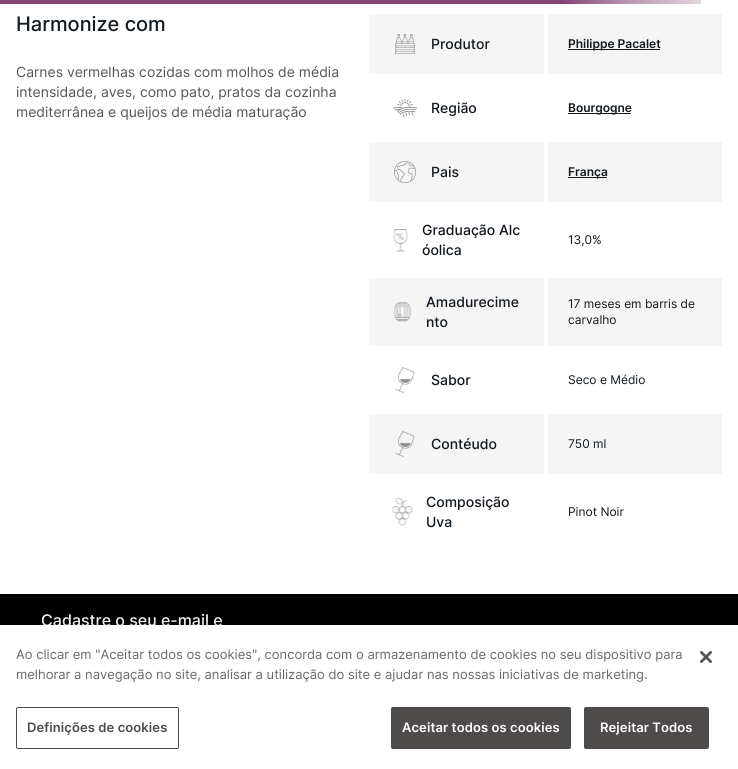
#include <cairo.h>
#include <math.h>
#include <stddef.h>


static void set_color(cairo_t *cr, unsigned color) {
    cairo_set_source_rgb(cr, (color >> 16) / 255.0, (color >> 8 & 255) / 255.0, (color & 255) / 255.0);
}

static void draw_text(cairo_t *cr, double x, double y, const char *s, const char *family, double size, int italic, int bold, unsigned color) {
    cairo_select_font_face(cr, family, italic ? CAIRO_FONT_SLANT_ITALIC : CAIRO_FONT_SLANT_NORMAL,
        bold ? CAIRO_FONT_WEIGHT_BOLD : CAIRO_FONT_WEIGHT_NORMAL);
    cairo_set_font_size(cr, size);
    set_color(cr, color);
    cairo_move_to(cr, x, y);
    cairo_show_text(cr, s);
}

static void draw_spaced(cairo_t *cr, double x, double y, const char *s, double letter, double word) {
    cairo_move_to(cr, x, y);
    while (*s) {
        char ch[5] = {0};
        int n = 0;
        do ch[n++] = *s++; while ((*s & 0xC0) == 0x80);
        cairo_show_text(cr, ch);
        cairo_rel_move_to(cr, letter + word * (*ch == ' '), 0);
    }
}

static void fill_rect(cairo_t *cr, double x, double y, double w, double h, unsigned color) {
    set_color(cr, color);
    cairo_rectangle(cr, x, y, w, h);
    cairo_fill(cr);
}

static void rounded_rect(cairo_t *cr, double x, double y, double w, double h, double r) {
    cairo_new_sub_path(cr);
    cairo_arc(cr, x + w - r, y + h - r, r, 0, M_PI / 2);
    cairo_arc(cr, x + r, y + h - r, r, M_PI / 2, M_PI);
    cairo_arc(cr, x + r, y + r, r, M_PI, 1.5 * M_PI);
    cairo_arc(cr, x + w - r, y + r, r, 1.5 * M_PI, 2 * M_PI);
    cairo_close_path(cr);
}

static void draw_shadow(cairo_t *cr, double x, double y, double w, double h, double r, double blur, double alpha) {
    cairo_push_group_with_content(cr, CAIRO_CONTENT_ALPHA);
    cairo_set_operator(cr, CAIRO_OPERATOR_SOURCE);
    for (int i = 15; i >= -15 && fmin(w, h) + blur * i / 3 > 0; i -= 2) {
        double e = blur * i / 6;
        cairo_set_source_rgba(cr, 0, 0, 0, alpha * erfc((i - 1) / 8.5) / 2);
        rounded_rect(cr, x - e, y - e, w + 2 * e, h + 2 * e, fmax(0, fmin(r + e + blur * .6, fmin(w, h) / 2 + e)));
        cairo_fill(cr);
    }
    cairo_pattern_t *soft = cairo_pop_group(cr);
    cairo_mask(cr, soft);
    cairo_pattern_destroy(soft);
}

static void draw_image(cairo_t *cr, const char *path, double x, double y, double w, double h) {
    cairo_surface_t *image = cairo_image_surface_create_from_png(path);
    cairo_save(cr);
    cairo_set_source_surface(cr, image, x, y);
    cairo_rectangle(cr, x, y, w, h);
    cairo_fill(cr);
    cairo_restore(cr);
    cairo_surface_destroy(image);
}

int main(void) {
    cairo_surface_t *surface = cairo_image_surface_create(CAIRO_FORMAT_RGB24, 738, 769);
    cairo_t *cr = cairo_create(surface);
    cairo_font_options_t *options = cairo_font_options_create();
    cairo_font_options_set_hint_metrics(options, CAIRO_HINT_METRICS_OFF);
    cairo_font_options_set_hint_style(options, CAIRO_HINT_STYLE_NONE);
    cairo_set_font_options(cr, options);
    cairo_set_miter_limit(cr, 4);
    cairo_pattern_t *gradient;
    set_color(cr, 0xFFFFFF);
    cairo_paint(cr);
    gradient = cairo_pattern_create_linear(0, 2, 701, 2);
    cairo_pattern_add_color_stop_rgba(gradient, 0.8, 0.518, 0.271, 0.455, 1);
    cairo_pattern_add_color_stop_rgba(gradient, 0.9, 0.733, 0.596, 0.698, 1);
    cairo_pattern_add_color_stop_rgba(gradient, 1, 0.894, 0.839, 0.878, 1);
    cairo_set_source(cr, gradient);
    cairo_pattern_destroy(gradient);
    cairo_rectangle(cr, 0, 0, 701, 4);
    cairo_fill(cr);
    draw_text(cr, 16, 31, "Harmonize com", "Inter Medium", 20, 0, 0, 0x101820);
    draw_text(cr, 16, 77, "Carnes vermelhas cozidas com molhos de média", "Inter", 14, 0, 0, 0x56565A);
    draw_text(cr, 16, 97, "intensidade, aves, como pato, pratos da cozinha", "Inter", 14, 0, 0, 0x56565A);
    draw_text(cr, 16, 117, "mediterrânea e queijos de média maturação", "Inter", 14, 0, 0, 0x56565A);
    fill_rect(cr, 369, 14, 353, 60, 0xF5F5F5);
    fill_rect(cr, 544, 14, 4, 60, 0xFFFFFF);
    draw_image(cr, "assets/img1.png", 395, 34, 20, 20);
    draw_text(cr, 431, 49, "Produtor", "Inter Medium", 14, 0, 0, 0x101820);
    fill_rect(cr, 568, 49, 92, 1, 0x101820);
    draw_text(cr, 568, 48, "Philippe Pacalet", "Inter SemiBold", 12, 0, 0, 0x101820);
    draw_image(cr, "assets/img2.png", 393, 99, 24, 18);
    draw_text(cr, 431, 113, "Região", "Inter Medium", 14, 0, 0, 0x101820);
    fill_rect(cr, 568, 113, 63, 1, 0x101820);
    draw_text(cr, 568, 112, "Bourgogne", "Inter SemiBold", 12, 0, 0, 0x101820);
    fill_rect(cr, 369, 142, 353, 60, 0xF5F5F5);
    fill_rect(cr, 544, 142, 4, 60, 0xFFFFFF);
    draw_image(cr, "assets/img3.png", 394, 161, 22, 22);
    draw_text(cr, 431, 177, "Pais", "Inter Medium", 14, 0, 0, 0x101820);
    fill_rect(cr, 568, 177, 39, 1, 0x101820);
    draw_text(cr, 568, 176, "França", "Inter SemiBold", 12, 0, 0, 0x101820);
    draw_image(cr, "assets/img4.png", 393, 229, 15, 23);
    draw_text(cr, 422, 235, "Graduação Alc", "Inter Medium", 14, 0, 0, 0x101820);
    draw_text(cr, 422, 255, "óolica", "Inter Medium", 14, 0, 0, 0x101820);
    draw_text(cr, 568, 244, "13,0%", "Inter", 12, 0, 0, 0x101820);
    fill_rect(cr, 369, 278, 353, 68, 0xF5F5F5);
    fill_rect(cr, 544, 278, 4, 68, 0xFFFFFF);
    draw_image(cr, "assets/img5.png", 393, 302, 19, 20);
    draw_text(cr, 426, 307, "Amadurecime", "Inter Medium", 14, 0, 0, 0x101820);
    draw_text(cr, 426, 327, "nto", "Inter Medium", 14, 0, 0, 0x101820);
    draw_text(cr, 568, 308, "17 meses em barris de", "Inter", 12, 0, 0, 0x101820);
    draw_text(cr, 568, 324, "carvalho", "Inter", 12, 0, 0, 0x101820);
    draw_image(cr, "assets/img6.png", 395, 367, 20, 26);
    draw_text(cr, 431, 385, "Sabor", "Inter Medium", 14, 0, 0, 0x101820);
    draw_text(cr, 568, 384, "Seco e Médio", "Inter", 12, 0, 0, 0x101820);
    fill_rect(cr, 369, 414, 353, 60, 0xF5F5F5);
    fill_rect(cr, 544, 414, 4, 60, 0xFFFFFF);
    draw_image(cr, "assets/img7.png", 395, 431, 20, 26);
    draw_text(cr, 431, 449, "Contéudo", "Inter Medium", 14, 0, 0, 0x101820);
    draw_text(cr, 568, 448, "750 ml", "Inter", 12, 0, 0, 0x101820);
    draw_image(cr, "assets/img8.png", 392, 498, 21, 28);
    draw_text(cr, 426, 507, "Composição", "Inter Medium", 14, 0, 0, 0x101820);
    draw_text(cr, 426, 527, "Uva", "Inter Medium", 14, 0, 0, 0x101820);
    draw_text(cr, 568, 516, "Pinot Noir", "Inter", 12, 0, 0, 0x101820);
    fill_rect(cr, 0, 594, 738, 31, 0x000000);
    draw_text(cr, 41, 626, "Cadastre o seu e-mail e", "Inter Medium", 16, 0, 0, 0xFFFFFF);
    set_color(cr, 0x000000);
    draw_shadow(cr, 0, 625, 738, 144, 0, 9, 0.2);
    fill_rect(cr, 0, 625, 738, 144, 0xFFFFFF);
    draw_text(cr, 16, 659, "Ao clicar em \"Aceitar todos os cookies\", concorda com o armazenamento de cookies no seu dispositivo para", "Inter", 13, 0, 0, 0x696969);
    draw_text(cr, 16, 679, "melhorar a navegação no site, analisar a utilização do site e ajudar nas nossas iniciativas de marketing.", "Inter", 13, 0, 0, 0x696969);
    rounded_rect(cr, 16.5, 707.5, 162, 41, 1.5);
    set_color(cr, 0x504B4B);
    cairo_set_line_width(cr, 1);
    cairo_stroke(cr);
    cairo_select_font_face(cr, "Inter SemiBold", CAIRO_FONT_SLANT_NORMAL, CAIRO_FONT_WEIGHT_NORMAL);
    draw_spaced(cr, 27, 732, "Definições de cookies", 0.1, 0);
    rounded_rect(cr, 391.5, 707.5, 179, 41, 1.5);
    cairo_fill_preserve(cr);
    cairo_stroke(cr);
    set_color(cr, 0xFFFFFF);
    draw_spaced(cr, 402, 732, "Aceitar todos os cookies", 0.1, 0);
    set_color(cr, 0x504B4B);
    rounded_rect(cr, 584.5, 707.5, 124, 41, 1.5);
    cairo_fill_preserve(cr);
    cairo_stroke(cr);
    set_color(cr, 0xFFFFFF);
    draw_spaced(cr, 600, 732, "Rejeitar Todos", 0.1, 0);
    draw_image(cr, "assets/img9.png", 700, 651, 12, 12);
    cairo_surface_write_to_png(surface, "output.png");
    cairo_font_options_destroy(options);
    cairo_destroy(cr);
    cairo_surface_destroy(surface);
    return 0;
}
